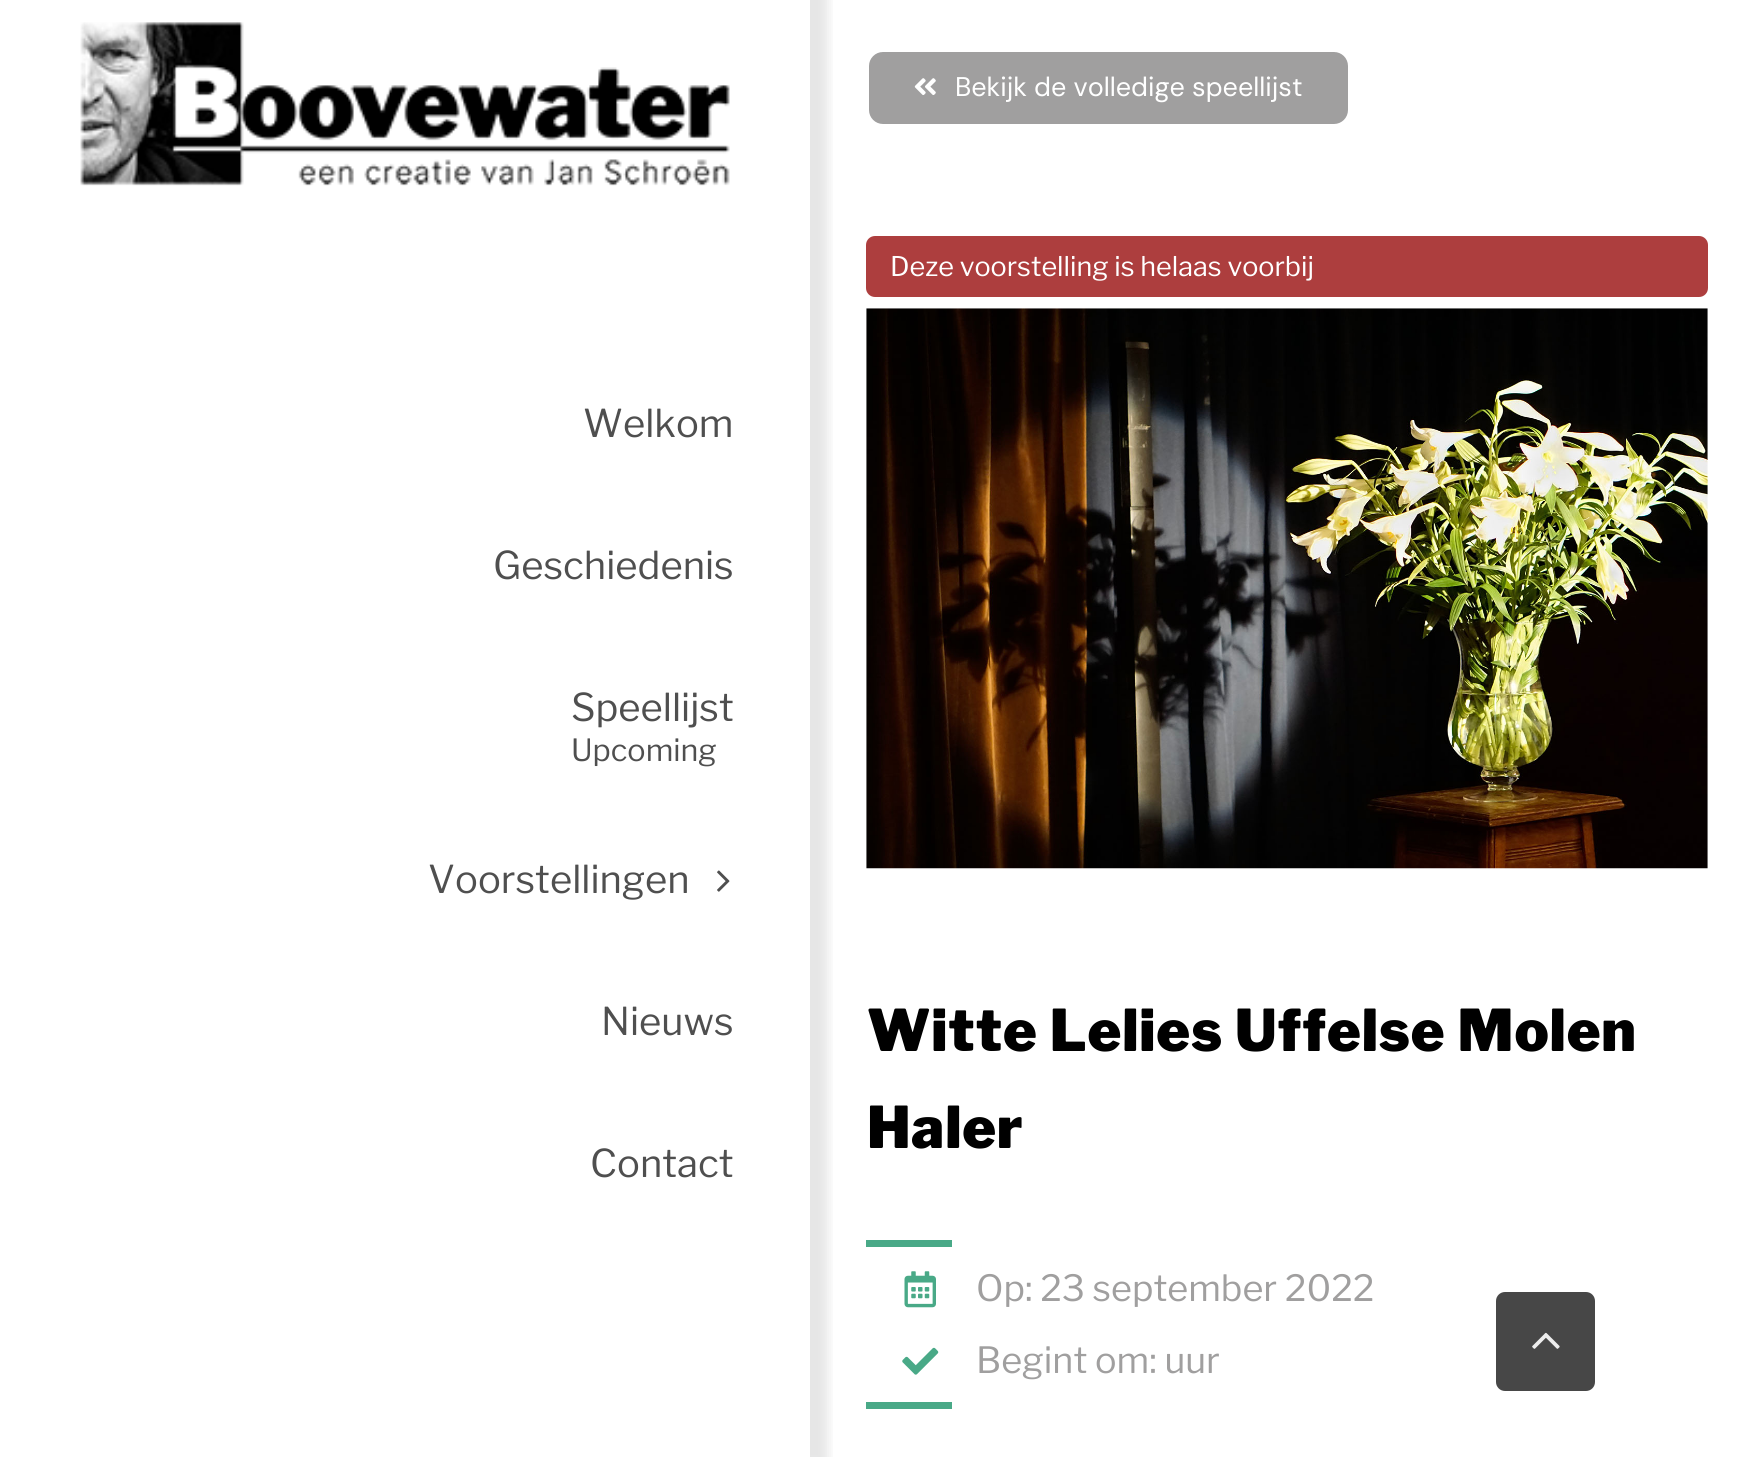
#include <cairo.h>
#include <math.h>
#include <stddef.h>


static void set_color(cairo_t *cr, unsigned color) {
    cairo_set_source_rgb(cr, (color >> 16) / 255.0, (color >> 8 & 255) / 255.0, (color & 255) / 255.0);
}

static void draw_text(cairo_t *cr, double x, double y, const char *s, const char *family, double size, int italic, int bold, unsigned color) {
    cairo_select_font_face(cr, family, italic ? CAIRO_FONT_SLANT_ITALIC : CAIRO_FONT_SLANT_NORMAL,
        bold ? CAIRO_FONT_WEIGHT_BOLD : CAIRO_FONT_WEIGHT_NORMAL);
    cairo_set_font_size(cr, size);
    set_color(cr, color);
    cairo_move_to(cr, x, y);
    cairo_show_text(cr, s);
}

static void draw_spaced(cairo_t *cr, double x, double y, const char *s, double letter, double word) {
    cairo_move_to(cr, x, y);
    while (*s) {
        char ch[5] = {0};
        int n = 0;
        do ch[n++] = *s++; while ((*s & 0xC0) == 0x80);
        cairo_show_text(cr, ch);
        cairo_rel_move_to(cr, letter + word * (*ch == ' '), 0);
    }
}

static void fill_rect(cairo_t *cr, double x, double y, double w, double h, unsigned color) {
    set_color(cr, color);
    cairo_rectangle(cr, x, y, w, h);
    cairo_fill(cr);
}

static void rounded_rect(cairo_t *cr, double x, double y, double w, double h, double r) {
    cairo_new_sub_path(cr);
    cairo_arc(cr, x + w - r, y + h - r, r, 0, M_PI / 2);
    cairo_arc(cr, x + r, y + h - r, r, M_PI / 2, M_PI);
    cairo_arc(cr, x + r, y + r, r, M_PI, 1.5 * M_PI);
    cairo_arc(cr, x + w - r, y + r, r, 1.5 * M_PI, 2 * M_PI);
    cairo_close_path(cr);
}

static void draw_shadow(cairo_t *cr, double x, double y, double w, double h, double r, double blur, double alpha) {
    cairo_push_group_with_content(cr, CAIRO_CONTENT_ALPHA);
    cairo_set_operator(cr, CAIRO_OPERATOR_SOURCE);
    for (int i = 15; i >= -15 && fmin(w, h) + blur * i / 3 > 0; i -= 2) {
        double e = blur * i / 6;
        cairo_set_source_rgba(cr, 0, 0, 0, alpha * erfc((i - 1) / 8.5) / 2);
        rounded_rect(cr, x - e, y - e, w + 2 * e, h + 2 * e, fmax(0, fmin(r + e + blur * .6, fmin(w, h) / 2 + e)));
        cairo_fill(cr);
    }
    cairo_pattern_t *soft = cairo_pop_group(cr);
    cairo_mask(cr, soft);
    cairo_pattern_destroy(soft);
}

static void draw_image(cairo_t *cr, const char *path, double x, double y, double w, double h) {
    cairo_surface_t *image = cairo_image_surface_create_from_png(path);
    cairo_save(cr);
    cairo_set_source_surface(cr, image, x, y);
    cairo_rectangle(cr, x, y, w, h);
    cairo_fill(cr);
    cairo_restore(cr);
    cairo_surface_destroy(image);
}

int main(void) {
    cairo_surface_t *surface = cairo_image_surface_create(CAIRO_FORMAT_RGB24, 1762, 1457);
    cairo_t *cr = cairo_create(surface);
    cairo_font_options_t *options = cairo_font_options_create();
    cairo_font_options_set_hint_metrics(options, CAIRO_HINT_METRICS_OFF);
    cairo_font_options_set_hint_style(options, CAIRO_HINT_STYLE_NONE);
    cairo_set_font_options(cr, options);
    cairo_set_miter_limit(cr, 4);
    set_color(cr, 0xFFFFFF);
    cairo_paint(cr);
    cairo_save(cr);
    cairo_rectangle(cr, 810, 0, 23, 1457);
    cairo_clip(cr);
    set_color(cr, 0x000000);
    draw_shadow(cr, 5, -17, 823, 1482, 0, 5.5, 0.1);
    cairo_restore(cr);
    draw_image(cr, "assets/img1.png", 80, 22, 650, 164);
    draw_text(cr, 583, 437, "Welkom", "Libre Franklin", 38.25, 0, 0, 0x4F4F4F);
    draw_text(cr, 493, 579, "Geschiedenis", "Libre Franklin", 38.25, 0, 0, 0x4F4F4F);
    draw_text(cr, 571, 721, "Speellijst", "Libre Franklin", 38.25, 0, 0, 0x4F4F4F);
    draw_text(cr, 571, 761, "Upcoming", "Libre Franklin", 30.5, 0, 0, 0x4F4F4F);
    draw_text(cr, 428, 893, "Voorstellingen", "Libre Franklin", 38.25, 0, 0, 0x4F4F4F);
    draw_image(cr, "assets/img2.png", 717, 870, 13, 22);
    draw_text(cr, 601, 1035, "Nieuws", "Libre Franklin", 38.25, 0, 0, 0x4F4F4F);
    draw_text(cr, 590, 1177, "Contact", "Libre Franklin", 38.25, 0, 0, 0x4F4F4F);
    set_color(cr, 0xA09F9F);
    rounded_rect(cr, 869, 52, 479, 72, 14);
    cairo_fill(cr);
    draw_image(cr, "assets/img3.png", 914, 78, 22, 17);
    draw_text(cr, 955, 96, "Bekijk de volledige speellijst", "DM Sans", 27, 0, 0, 0xFFFFFF);
    set_color(cr, 0xAD3E3E);
    rounded_rect(cr, 866, 236, 842, 61, 9);
    cairo_fill(cr);
    draw_text(cr, 890, 276, "Deze voorstelling is helaas voorbij", "Libre Franklin", 27, 0, 0, 0xFFFFFF);
    draw_image(cr, "assets/img4.png", 866, 308, 842, 561);
    cairo_select_font_face(cr, "Libre Franklin Black", CAIRO_FONT_SLANT_NORMAL, CAIRO_FONT_WEIGHT_NORMAL);
    cairo_set_font_size(cr, 57.25);
    set_color(cr, 0x000000);
    draw_spaced(cr, 867, 1051, "Witte Lelies Uffelse Molen", 0.85, 0);
    draw_spaced(cr, 867, 1148, "Haler", 0.85, 0);
    fill_rect(cr, 866, 1240, 86, 7, 0x49A987);
    draw_image(cr, "assets/img5.png", 904, 1271, 32, 37);
    draw_text(cr, 976, 1301, "Op: 23 september 2022", "Libre Franklin", 36, 0, 0, 0xA09F9F);
    draw_image(cr, "assets/img6.png", 902, 1347, 37, 28);
    draw_text(cr, 976, 1373, "Begint om: uur", "Libre Franklin", 36, 0, 0, 0xA09F9F);
    fill_rect(cr, 866, 1402, 86, 7, 0x49A987);
    set_color(cr, 0x474747);
    rounded_rect(cr, 1496, 1292, 99, 99, 9);
    cairo_fill(cr);
    draw_image(cr, "assets/img7.png", 1532, 1332, 28, 17);
    cairo_surface_write_to_png(surface, "output.png");
    cairo_font_options_destroy(options);
    cairo_destroy(cr);
    cairo_surface_destroy(surface);
    return 0;
}
